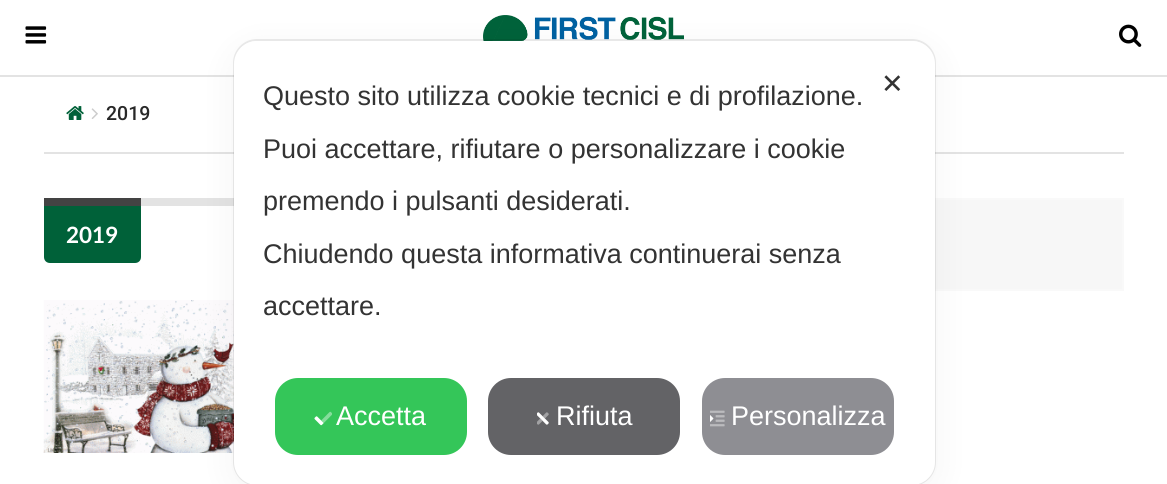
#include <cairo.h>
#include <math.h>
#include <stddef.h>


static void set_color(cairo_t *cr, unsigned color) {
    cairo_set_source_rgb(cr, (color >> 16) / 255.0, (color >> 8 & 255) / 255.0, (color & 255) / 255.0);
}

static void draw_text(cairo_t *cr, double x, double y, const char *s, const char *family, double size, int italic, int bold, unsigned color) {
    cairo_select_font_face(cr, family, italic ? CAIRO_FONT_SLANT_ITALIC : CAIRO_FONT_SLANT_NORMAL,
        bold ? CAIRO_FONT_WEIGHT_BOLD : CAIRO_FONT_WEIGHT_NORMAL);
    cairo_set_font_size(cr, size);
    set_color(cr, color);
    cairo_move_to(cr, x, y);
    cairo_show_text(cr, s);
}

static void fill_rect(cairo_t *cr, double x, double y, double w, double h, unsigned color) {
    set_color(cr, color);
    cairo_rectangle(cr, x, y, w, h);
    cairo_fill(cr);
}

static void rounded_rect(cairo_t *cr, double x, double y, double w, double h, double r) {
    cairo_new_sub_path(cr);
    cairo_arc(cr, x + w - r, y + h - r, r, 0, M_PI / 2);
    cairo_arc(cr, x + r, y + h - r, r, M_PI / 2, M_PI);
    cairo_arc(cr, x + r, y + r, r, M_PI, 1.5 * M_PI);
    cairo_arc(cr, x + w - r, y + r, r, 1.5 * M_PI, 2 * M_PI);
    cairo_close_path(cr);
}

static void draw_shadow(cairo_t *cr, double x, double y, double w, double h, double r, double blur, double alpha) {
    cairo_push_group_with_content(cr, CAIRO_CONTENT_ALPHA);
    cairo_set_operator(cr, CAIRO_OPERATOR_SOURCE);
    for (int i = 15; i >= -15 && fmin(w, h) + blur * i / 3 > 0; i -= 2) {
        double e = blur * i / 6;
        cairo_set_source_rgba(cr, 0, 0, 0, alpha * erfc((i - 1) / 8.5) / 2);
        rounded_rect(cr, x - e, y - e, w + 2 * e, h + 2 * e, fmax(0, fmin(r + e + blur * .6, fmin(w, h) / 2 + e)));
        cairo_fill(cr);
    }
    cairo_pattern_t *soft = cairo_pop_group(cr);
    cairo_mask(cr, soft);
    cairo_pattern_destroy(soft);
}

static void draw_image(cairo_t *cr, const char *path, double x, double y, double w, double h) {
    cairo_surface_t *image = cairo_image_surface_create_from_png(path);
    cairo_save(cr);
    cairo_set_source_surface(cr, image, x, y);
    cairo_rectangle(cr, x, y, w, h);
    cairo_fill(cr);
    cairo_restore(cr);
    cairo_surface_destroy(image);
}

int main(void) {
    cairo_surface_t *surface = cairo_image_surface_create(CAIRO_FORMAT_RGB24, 1167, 484);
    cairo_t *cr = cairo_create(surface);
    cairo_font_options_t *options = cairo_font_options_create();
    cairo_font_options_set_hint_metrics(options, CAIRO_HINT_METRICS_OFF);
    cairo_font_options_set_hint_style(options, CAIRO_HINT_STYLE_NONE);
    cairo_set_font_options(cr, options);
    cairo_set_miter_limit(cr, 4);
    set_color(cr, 0xFFFFFF);
    cairo_paint(cr);
    fill_rect(cr, 0, 75, 1167, 2, 0xE3E3E3);
    draw_image(cr, "assets/img1.png", 25, 26, 22, 18);
    draw_image(cr, "assets/img2.png", 483, 15, 201, 26);
    draw_image(cr, "assets/img3.png", 1119, 24, 23, 23);
    fill_rect(cr, 44, 152, 1080, 2, 0xE3E3E3);
    draw_image(cr, "assets/img4.png", 66, 106, 18, 14);
    draw_image(cr, "assets/img5.png", 91, 108, 7, 11);
    draw_text(cr, 106, 120, "2019", "Roboto Medium", 19.5, 0, 0, 0x282828);
    fill_rect(cr, 141, 198, 93, 8, 0xE3E3E3);
    set_color(cr, 0x006139);
    cairo_new_path(cr);
    cairo_move_to(cr, 44, 198);
    cairo_line_to(cr, 141, 198);
    cairo_line_to(cr, 141, 257);
    cairo_curve_to(cr, 141, 260.5, 138.5, 263, 135, 263);
    cairo_line_to(cr, 50, 263);
    cairo_curve_to(cr, 46.5, 263, 44, 260.5, 44, 257);
    cairo_close_path(cr);
    cairo_fill(cr);
    fill_rect(cr, 44, 198, 97, 8, 0x434343);
    draw_text(cr, 66, 243, "2019", "Lato", 22.5, 0, 1, 0xFFFFFF);
    draw_image(cr, "assets/img6.png", 43, 300, 191, 153);
    fill_rect(cr, 935, 200, 187, 89, 0xF7F7F7);
    cairo_rectangle(cr, 795, 199, 328, 91);
    set_color(cr, 0xF9F9F9);
    cairo_stroke(cr);
    rounded_rect(cr, 234, 40, 701, 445, 23);
    cairo_set_source_rgba(cr, 0, 0, 0, 0.08);
    cairo_stroke(cr);
    set_color(cr, 0x000000);
    draw_shadow(cr, 234, 50, 701, 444, 23, 18, 0.05);
    set_color(cr, 0xFFFFFF);
    rounded_rect(cr, 234, 41, 701, 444, 23);
    cairo_fill(cr);
    draw_text(cr, 881, 93, "✕", "DejaVu Sans", 27, 0, 0, 0x333333);
    draw_text(cr, 263, 105, "Questo sito utilizza cookie tecnici e di profilazione.", "Liberation Sans", 27, 0, 0, 0x333333);
    draw_text(cr, 263, 158, "Puoi accettare, rifiutare o personalizzare i cookie", "Liberation Sans", 27, 0, 0, 0x333333);
    draw_text(cr, 263, 210, "premendo i pulsanti desiderati.", "Liberation Sans", 27, 0, 0, 0x333333);
    draw_text(cr, 263, 263, "Chiudendo questa informativa continuerai senza", "Liberation Sans", 27, 0, 0, 0x333333);
    draw_text(cr, 263, 315, "accettare.", "Liberation Sans", 27, 0, 0, 0x333333);
    set_color(cr, 0x34C659);
    rounded_rect(cr, 275, 378, 192, 77, 23);
    cairo_fill(cr);
    draw_image(cr, "assets/img7.png", 314, 411, 18, 15);
    draw_text(cr, 336, 425, "Accetta", "Liberation Sans", 27, 0, 0, 0xFFFFFF);
    set_color(cr, 0x636366);
    rounded_rect(cr, 488, 378, 192, 77, 23);
    cairo_fill(cr);
    draw_image(cr, "assets/img8.png", 537, 412, 12, 13);
    draw_text(cr, 556, 425, "Rifiuta", "Liberation Sans", 27, 0, 0, 0xFFFFFF);
    set_color(cr, 0x8E8E93);
    rounded_rect(cr, 702, 378, 192, 77, 23);
    cairo_fill(cr);
    draw_image(cr, "assets/img9.png", 710, 410, 15, 17);
    draw_text(cr, 731, 425, "Personalizza", "Liberation Sans", 27, 0, 0, 0xFFFFFF);
    cairo_surface_write_to_png(surface, "output.png");
    cairo_font_options_destroy(options);
    cairo_destroy(cr);
    cairo_surface_destroy(surface);
    return 0;
}
